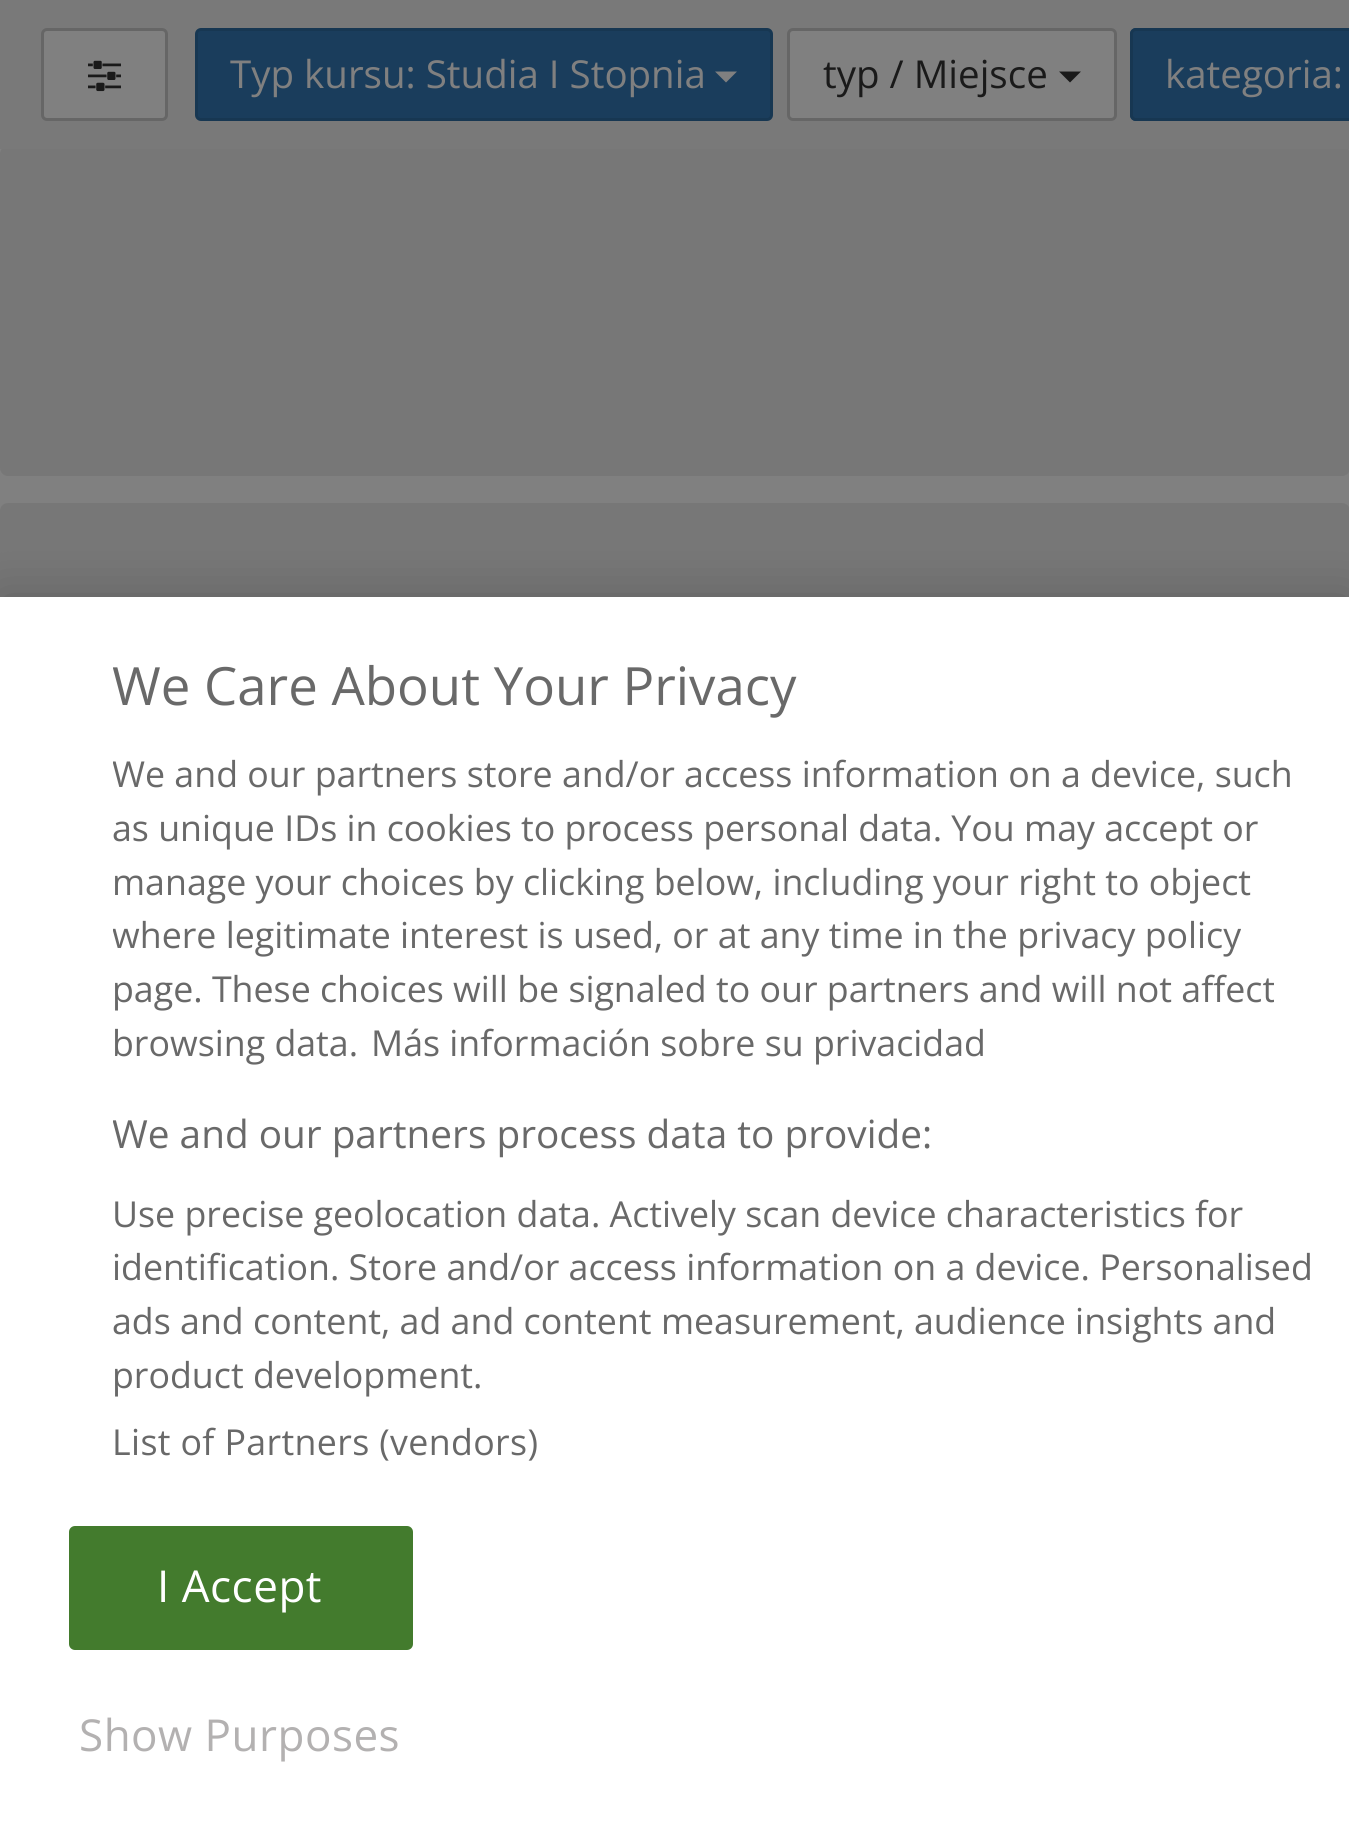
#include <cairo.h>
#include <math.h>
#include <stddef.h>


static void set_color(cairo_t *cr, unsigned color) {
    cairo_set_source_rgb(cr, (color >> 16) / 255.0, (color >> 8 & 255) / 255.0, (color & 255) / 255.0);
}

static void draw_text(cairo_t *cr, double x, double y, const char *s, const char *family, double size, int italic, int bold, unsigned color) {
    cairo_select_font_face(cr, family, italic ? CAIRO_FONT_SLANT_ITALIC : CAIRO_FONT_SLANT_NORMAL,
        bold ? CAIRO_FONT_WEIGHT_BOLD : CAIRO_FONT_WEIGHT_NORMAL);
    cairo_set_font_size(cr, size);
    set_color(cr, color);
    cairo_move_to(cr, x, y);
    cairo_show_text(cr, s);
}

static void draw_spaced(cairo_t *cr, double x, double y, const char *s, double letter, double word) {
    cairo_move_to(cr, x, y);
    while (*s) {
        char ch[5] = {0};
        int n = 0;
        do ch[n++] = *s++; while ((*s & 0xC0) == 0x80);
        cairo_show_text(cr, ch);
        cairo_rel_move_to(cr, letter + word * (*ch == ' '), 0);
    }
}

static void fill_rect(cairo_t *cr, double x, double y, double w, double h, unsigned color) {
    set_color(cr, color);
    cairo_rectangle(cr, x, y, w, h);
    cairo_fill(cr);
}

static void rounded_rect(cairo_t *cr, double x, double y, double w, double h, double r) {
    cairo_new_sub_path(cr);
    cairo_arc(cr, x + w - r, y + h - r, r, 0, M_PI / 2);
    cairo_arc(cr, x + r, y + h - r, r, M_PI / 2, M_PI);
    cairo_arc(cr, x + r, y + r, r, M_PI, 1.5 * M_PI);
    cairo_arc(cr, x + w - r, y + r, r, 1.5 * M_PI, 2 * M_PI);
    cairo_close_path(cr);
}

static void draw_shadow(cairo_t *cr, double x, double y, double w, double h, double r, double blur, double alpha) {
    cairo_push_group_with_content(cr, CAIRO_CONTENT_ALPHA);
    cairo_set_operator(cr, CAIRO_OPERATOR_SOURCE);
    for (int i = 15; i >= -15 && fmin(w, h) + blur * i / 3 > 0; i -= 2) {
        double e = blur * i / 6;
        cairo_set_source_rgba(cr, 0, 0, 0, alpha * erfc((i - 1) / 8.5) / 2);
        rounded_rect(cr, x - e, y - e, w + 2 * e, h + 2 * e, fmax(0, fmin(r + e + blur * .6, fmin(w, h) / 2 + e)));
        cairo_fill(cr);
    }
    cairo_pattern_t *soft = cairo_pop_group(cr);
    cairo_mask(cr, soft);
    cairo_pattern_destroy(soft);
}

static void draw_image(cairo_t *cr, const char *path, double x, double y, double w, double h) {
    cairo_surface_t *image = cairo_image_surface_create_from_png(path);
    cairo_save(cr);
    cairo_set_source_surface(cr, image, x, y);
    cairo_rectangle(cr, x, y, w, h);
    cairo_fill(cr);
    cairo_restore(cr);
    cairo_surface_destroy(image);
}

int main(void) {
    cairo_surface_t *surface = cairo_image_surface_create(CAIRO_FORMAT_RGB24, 1349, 1823);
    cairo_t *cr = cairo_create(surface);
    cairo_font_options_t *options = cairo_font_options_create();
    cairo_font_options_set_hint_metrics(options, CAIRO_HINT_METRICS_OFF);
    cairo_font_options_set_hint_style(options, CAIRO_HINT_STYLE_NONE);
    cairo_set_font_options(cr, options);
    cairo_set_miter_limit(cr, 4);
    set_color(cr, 0x808080);
    cairo_paint(cr);
    set_color(cr, 0x777777);
    rounded_rect(cr, 0, 146, 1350, 330, 8);
    cairo_fill(cr);
    fill_rect(cr, 0, 0, 1349, 149, 0x797979);
    set_color(cr, 0x808080);
    rounded_rect(cr, 42.5, 29.5, 124, 90, 4.5);
    cairo_fill_preserve(cr);
    set_color(cr, 0x666666);
    cairo_set_line_width(cr, 3);
    cairo_stroke(cr);
    draw_image(cr, "assets/img1.png", 88, 60, 33, 32);
    set_color(cr, 0x1A3D5C);
    rounded_rect(cr, 196.5, 29.5, 575, 90, 4.5);
    cairo_fill_preserve(cr);
    set_color(cr, 0x173752);
    cairo_stroke(cr);
    draw_text(cr, 230, 88, "Typ kursu: Studia I Stopnia", "Open Sans", 38.5, 0, 0, 0x808080);
    cairo_new_path(cr);
    cairo_move_to(cr, 715, 71.5);
    cairo_line_to(cr, 737, 71.5);
    cairo_line_to(cr, 726, 82.5);
    cairo_close_path(cr);
    cairo_fill(cr);
    rounded_rect(cr, 788.5, 29.5, 327, 90, 4.5);
    cairo_fill_preserve(cr);
    set_color(cr, 0x666666);
    cairo_stroke(cr);
    draw_text(cr, 823, 88, "typ / Miejsce", "Open Sans", 38.5, 0, 0, 0x1A1A1A);
    cairo_new_path(cr);
    cairo_move_to(cr, 1059, 71.5);
    cairo_line_to(cr, 1081, 71.5);
    cairo_line_to(cr, 1070, 82.5);
    cairo_close_path(cr);
    cairo_fill(cr);
    set_color(cr, 0x1A3D5C);
    cairo_new_path(cr);
    cairo_move_to(cr, 1136, 28);
    cairo_line_to(cr, 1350, 28);
    cairo_line_to(cr, 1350, 121);
    cairo_line_to(cr, 1136, 121);
    cairo_curve_to(cr, 1132.5, 121, 1130, 118.5, 1130, 115);
    cairo_line_to(cr, 1130, 34);
    cairo_curve_to(cr, 1130, 30.5, 1132.5, 28, 1136, 28);
    cairo_close_path(cr);
    cairo_fill(cr);
    rounded_rect(cr, 1131.5, 29.5, 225, 90, 4.5);
    set_color(cr, 0x173752);
    cairo_stroke(cr);
    draw_text(cr, 1165, 88, "kategoria:", "Open Sans", 38.5, 0, 0, 0x808080);
    set_color(cr, 0x777777);
    rounded_rect(cr, 0, 503, 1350, 330, 8);
    cairo_fill(cr);
    set_color(cr, 0x000000);
    draw_shadow(cr, 0, 597, 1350, 1226, 0, 25, 0.2);
    fill_rect(cr, 0, 597, 1349, 1226, 0xFFFFFF);
    cairo_save(cr);
    cairo_rectangle(cr, 113, 652, 1213, 847);
    cairo_clip(cr);
    draw_text(cr, 112, 705, "We Care About Your Privacy", "Open Sans", 52.75, 0, 0, 0x696969);
    draw_text(cr, 112, 787, "We and our partners store and/or access information on a device, such", "Open Sans", 35.75, 0, 0, 0x696969);
    cairo_restore(cr);
    draw_text(cr, 112, 841, "as unique IDs in cookies to process personal data. You may accept or", "Open Sans", 35.75, 0, 0, 0x696969);
    draw_text(cr, 112, 895, "manage your choices by clicking below, including your right to object", "Open Sans", 35.75, 0, 0, 0x696969);
    cairo_save(cr);
    cairo_rectangle(cr, 113, 652, 1213, 847);
    cairo_clip(cr);
    draw_text(cr, 112, 948, "where legitimate interest is used, or at any time in the privacy policy", "Open Sans", 35.75, 0, 0, 0x696969);
    cairo_restore(cr);
    draw_text(cr, 112, 1002, "page. These choices will be signaled to our partners and will not affect", "Open Sans", 35.75, 0, 0, 0x696969);
    draw_text(cr, 112, 1056, "browsing data.", "Open Sans", 35.75, 0, 0, 0x696969);
    draw_text(cr, 371, 1056, "Más información sobre su privacidad", "Open Sans", 35.75, 0, 0, 0x696969);
    cairo_save(cr);
    cairo_rectangle(cr, 113, 652, 1213, 847);
    cairo_clip(cr);
    draw_text(cr, 112, 1148, "We and our partners process data to provide:", "Open Sans", 38.75, 0, 0, 0x696969);
    cairo_restore(cr);
    draw_text(cr, 112, 1227, "Use precise geolocation data. Actively scan device characteristics for", "Open Sans", 35.75, 0, 0, 0x696969);
    draw_text(cr, 112, 1280, "identification. Store and/or access information on a device. Personalised", "Open Sans", 35.75, 0, 0, 0x696969);
    draw_text(cr, 112, 1334, "ads and content, ad and content measurement, audience insights and", "Open Sans", 35.75, 0, 0, 0x696969);
    draw_text(cr, 112, 1388, "product development.", "Open Sans", 35.75, 0, 0, 0x696969);
    draw_spaced(cr, 112, 1455, "List of Partners (vendors)", 0.35, 0);
    set_color(cr, 0x437B2D);
    rounded_rect(cr, 70.5, 1527.5, 341, 121, 4.5);
    cairo_fill_preserve(cr);
    cairo_stroke(cr);
    cairo_set_font_size(cr, 44);
    set_color(cr, 0xFFFFFF);
    draw_spaced(cr, 157, 1602, "I Accept", 0.5, 0);
    set_color(cr, 0xB3B1B1);
    draw_spaced(cr, 79, 1751, "Show Purposes", 0.5, 0);
    cairo_surface_write_to_png(surface, "output.png");
    cairo_font_options_destroy(options);
    cairo_destroy(cr);
    cairo_surface_destroy(surface);
    return 0;
}
